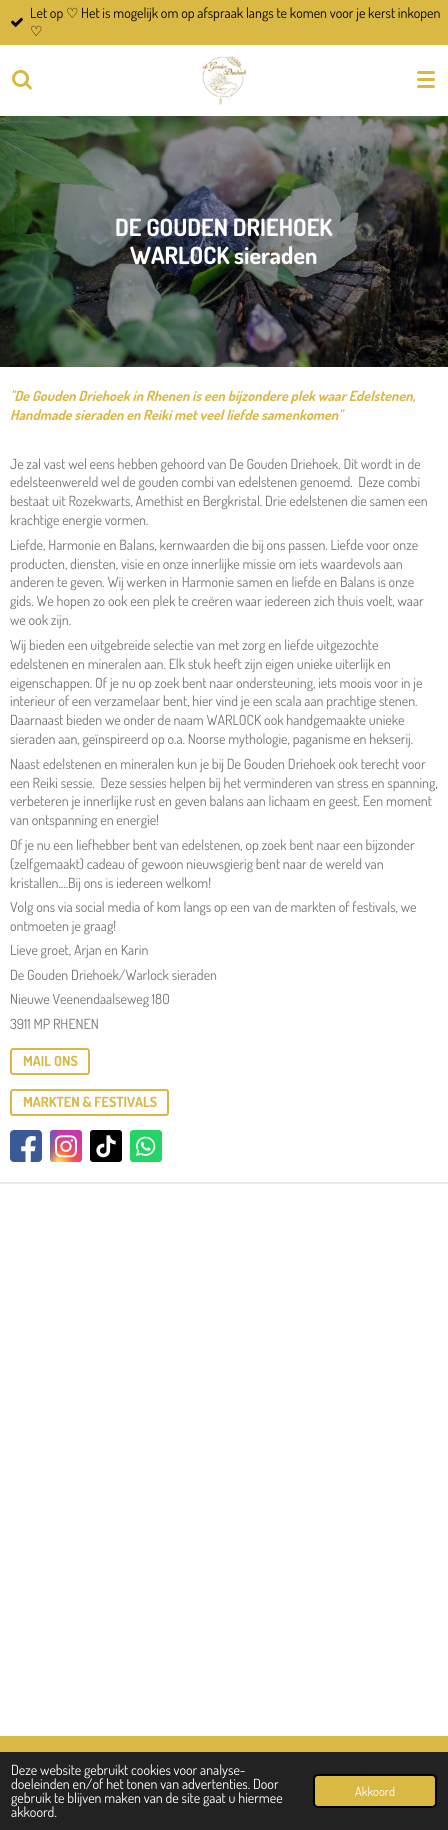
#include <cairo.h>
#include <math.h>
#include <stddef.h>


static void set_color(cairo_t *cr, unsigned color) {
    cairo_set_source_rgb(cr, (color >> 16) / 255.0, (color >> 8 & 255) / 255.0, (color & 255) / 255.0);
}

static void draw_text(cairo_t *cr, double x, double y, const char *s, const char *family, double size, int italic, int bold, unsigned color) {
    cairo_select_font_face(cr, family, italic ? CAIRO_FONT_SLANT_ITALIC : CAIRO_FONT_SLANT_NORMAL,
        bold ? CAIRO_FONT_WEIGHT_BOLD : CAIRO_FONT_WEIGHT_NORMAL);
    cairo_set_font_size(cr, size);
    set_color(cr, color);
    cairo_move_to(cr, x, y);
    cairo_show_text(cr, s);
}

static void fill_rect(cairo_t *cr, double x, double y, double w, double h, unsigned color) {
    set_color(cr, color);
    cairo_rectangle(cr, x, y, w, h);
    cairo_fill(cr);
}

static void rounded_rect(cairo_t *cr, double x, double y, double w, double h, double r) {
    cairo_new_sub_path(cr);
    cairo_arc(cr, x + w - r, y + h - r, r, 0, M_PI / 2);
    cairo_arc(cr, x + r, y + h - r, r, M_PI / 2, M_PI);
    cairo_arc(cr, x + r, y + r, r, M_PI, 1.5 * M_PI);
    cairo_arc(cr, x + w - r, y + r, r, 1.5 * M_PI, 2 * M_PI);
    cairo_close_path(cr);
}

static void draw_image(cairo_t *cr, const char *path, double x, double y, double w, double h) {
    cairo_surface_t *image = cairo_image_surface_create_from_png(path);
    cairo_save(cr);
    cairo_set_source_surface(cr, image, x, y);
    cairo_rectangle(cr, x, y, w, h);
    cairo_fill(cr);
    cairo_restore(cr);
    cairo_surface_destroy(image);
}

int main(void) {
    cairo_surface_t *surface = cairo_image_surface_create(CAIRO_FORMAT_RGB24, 448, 1830);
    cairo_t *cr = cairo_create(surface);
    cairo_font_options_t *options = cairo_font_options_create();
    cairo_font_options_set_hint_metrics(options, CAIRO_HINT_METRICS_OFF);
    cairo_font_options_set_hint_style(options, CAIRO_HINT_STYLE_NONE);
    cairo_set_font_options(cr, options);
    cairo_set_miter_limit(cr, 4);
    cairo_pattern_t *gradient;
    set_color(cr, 0xFFFFFF);
    cairo_paint(cr);
    fill_rect(cr, 0, 0, 448, 45, 0xDAB844);
    draw_image(cr, "assets/img1.png", 11, 17, 12, 10);
    draw_text(cr, 30, 18, "Let op", "Dosis", 14, 0, 0, 0x050401);
    draw_text(cr, 66, 18, "♡", "DejaVu Sans", 14, 0, 0, 0x050401);
    draw_text(cr, 81, 18, "Het is mogelijk om op afspraak langs te komen voor je kerst inkopen", "Dosis", 14, 0, 0, 0x050401);
    draw_text(cr, 30, 36, "♡", "DejaVu Sans", 14, 0, 0, 0x050401);
    cairo_new_path(cr);
    cairo_arc(cr, 20.5, 78.5, 7, 0, 2 * M_PI);
    set_color(cr, 0xDAB844);
    cairo_set_line_width(cr, 3);
    cairo_stroke(cr);
    cairo_new_path(cr);
    cairo_move_to(cr, 25.5, 81);
    cairo_line_to(cr, 31.5, 87);
    cairo_curve_to(cr, 32, 87.5, 32, 88.5, 31.5, 89);
    cairo_curve_to(cr, 31, 90, 30, 90, 29.5, 89);
    cairo_line_to(cr, 23.5, 83);
    cairo_close_path(cr);
    cairo_fill(cr);
    draw_image(cr, "assets/img2.png", 202, 56, 45, 49);
    rounded_rect(cr, 417, 78, 18, 3, 1.5);
    cairo_fill(cr);
    rounded_rect(cr, 417, 71, 18, 3, 1.5);
    cairo_fill(cr);
    rounded_rect(cr, 417, 85, 18, 3, 1.5);
    cairo_fill(cr);
    draw_image(cr, "assets/img3.png", 0, 116, 448, 251);
    draw_text(cr, 115, 236, "DE GOUDEN DRIEHOEK", "Dosis", 23.75, 0, 1, 0xFFFFFF);
    draw_text(cr, 130, 264, "WARLOCK sieraden", "Dosis", 23.75, 0, 1, 0xFFFFFF);
    fill_rect(cr, 0, 1182, 448, 2, 0xEAEAEA);
    draw_text(cr, 10, 401, "\"De Gouden Driehoek in Rhenen is een bijzondere plek waar Edelstenen,", "Dosis", 14, 1, 1, 0xDAB844);
    draw_text(cr, 10, 420, "Handmade sieraden en Reiki met veel liefde samenkomen\"", "Dosis", 14, 1, 1, 0xDAB844);
    draw_text(cr, 10, 469, "Je zal vast wel eens hebben gehoord van De Gouden Driehoek. Dit wordt in de", "Dosis", 14, 0, 0, 0x737373);
    draw_text(cr, 10, 487, "edelsteenwereld wel de gouden combi van edelstenen genoemd.  Deze combi", "Dosis", 14, 0, 0, 0x737373);
    draw_text(cr, 10, 506, "bestaat uit Rozekwarts, Amethist en Bergkristal. Drie edelstenen die samen een", "Dosis", 14, 0, 0, 0x737373);
    draw_text(cr, 10, 525, "krachtige energie vormen.", "Dosis", 14, 0, 0, 0x737373);
    draw_text(cr, 10, 550, "Liefde, Harmonie en Balans, kernwaarden die bij ons passen. Liefde voor onze", "Dosis", 14, 0, 0, 0x737373);
    draw_text(cr, 10, 569, "producten, diensten, visie en onze innerlijke missie om iets waardevols aan", "Dosis", 14, 0, 0, 0x737373);
    draw_text(cr, 10, 587, "anderen te geven. Wij werken in Harmonie samen en liefde en Balans is onze", "Dosis", 14, 0, 0, 0x737373);
    draw_text(cr, 10, 606, "gids. We hopen zo ook een plek te creëren waar iedereen zich thuis voelt, waar", "Dosis", 14, 0, 0, 0x737373);
    draw_text(cr, 10, 625, "we ook zijn.", "Dosis", 14, 0, 0, 0x737373);
    draw_text(cr, 10, 650, "Wij bieden een uitgebreide selectie van met zorg en liefde uitgezochte", "Dosis", 14, 0, 0, 0x737373);
    draw_text(cr, 10, 669, "edelstenen en mineralen aan. Elk stuk heeft zijn eigen unieke uiterlijk en", "Dosis", 14, 0, 0, 0x737373);
    draw_text(cr, 10, 688, "eigenschappen. Of je nu op zoek bent naar ondersteuning, iets moois voor in je", "Dosis", 14, 0, 0, 0x737373);
    draw_text(cr, 10, 706, "interieur of een verzamelaar bent, hier vind je een scala aan prachtige stenen.", "Dosis", 14, 0, 0, 0x737373);
    draw_text(cr, 10, 725, "Daarnaast bieden we onder de naam WARLOCK ook handgemaakte unieke", "Dosis", 14, 0, 0, 0x737373);
    draw_text(cr, 10, 744, "sieraden aan, geïnspireerd op o.a. Noorse mythologie, paganisme en hekserij.", "Dosis", 14, 0, 0, 0x737373);
    draw_text(cr, 10, 769, "Naast edelstenen en mineralen kun je bij De Gouden Driehoek ook terecht voor", "Dosis", 14, 0, 0, 0x737373);
    draw_text(cr, 10, 788, "een Reiki sessie.  Deze sessies helpen bij het verminderen van stress en spanning,", "Dosis", 14, 0, 0, 0x737373);
    draw_text(cr, 10, 806, "verbeteren je innerlijke rust en geven balans aan lichaam en geest. Een moment", "Dosis", 14, 0, 0, 0x737373);
    draw_text(cr, 10, 825, "van ontspanning en energie!", "Dosis", 14, 0, 0, 0x737373);
    draw_text(cr, 10, 850, "Of je nu een liefhebber bent van edelstenen, op zoek bent naar een bijzonder", "Dosis", 14, 0, 0, 0x737373);
    draw_text(cr, 10, 869, "(zelfgemaakt) cadeau of gewoon nieuwsgierig bent naar de wereld van", "Dosis", 14, 0, 0, 0x737373);
    draw_text(cr, 10, 888, "kristallen....Bij ons is iedereen welkom!", "Dosis", 14, 0, 0, 0x737373);
    draw_text(cr, 10, 912, "Volg ons via social media of kom langs op een van de markten of festivals, we", "Dosis", 14, 0, 0, 0x737373);
    draw_text(cr, 10, 931, "ontmoeten je graag!", "Dosis", 14, 0, 0, 0x737373);
    draw_text(cr, 10, 955, "Lieve groet, Arjan en Karin", "Dosis", 14, 0, 0, 0x737373);
    draw_text(cr, 10, 980, "De Gouden Driehoek/Warlock sieraden", "Dosis", 14, 0, 0, 0x737373);
    draw_text(cr, 10, 1004, "Nieuwe Veenendaalseweg 180", "Dosis", 14, 0, 0, 0x737373);
    draw_text(cr, 10, 1029, "3911 MP RHENEN", "Dosis", 14, 0, 0, 0x737373);
    rounded_rect(cr, 11, 1049, 78, 25, 2);
    set_color(cr, 0xDAB844);
    cairo_set_line_width(cr, 2);
    cairo_stroke(cr);
    draw_text(cr, 23, 1066, "MAIL ONS", "Dosis", 14, 0, 1, 0xDAB844);
    rounded_rect(cr, 11, 1090, 157, 25, 2);
    cairo_stroke(cr);
    draw_text(cr, 23, 1107, "MARKTEN & FESTIVALS", "Dosis", 14, 0, 1, 0xDAB844);
    set_color(cr, 0x3B5998);
    rounded_rect(cr, 10, 1130, 32, 32, 4);
    cairo_fill(cr);
    draw_image(cr, "assets/img4.png", 21, 1136, 15, 26);
    gradient = cairo_pattern_create_radial(0, 0, 0, 0, 0, 1);
    cairo_pattern_set_matrix(gradient, &(cairo_matrix_t){1.0 / 31, 0, 0, 1.0 / 29, -1.0 * 58 / 31, -1.0 * 1164 / 29});
    cairo_pattern_add_color_stop_rgba(gradient, 0, 1, 0.867, 0.333, 1);
    cairo_pattern_add_color_stop_rgba(gradient, 0.1, 1, 0.867, 0.333, 1);
    cairo_pattern_add_color_stop_rgba(gradient, 0.5, 1, 0.329, 0.243, 1);
    cairo_pattern_add_color_stop_rgba(gradient, 1, 0.784, 0.216, 0.671, 1);
    cairo_set_source(cr, gradient);
    cairo_pattern_destroy(gradient);
    rounded_rect(cr, 50, 1130, 32, 32, 3);
    cairo_fill(cr);
    gradient = cairo_pattern_create_radial(0, 0, 0, 0, 0, 1);
    cairo_pattern_set_matrix(gradient, &(cairo_matrix_t){1.0 / 14, 0, 0, 1.0 / 58, -1.0 * 45 / 14, -1.0 * 1132 / 58});
    cairo_pattern_add_color_stop_rgba(gradient, 0, 0.216, 0.443, 0.784, 1);
    cairo_pattern_add_color_stop_rgba(gradient, 0.13, 0.216, 0.443, 0.784, 1);
    cairo_pattern_add_color_stop_rgba(gradient, 1, 0.216, 0.443, 0.784, 0);
    cairo_set_source(cr, gradient);
    cairo_pattern_destroy(gradient);
    rounded_rect(cr, 50, 1130, 32, 32, 3);
    cairo_fill(cr);
    draw_image(cr, "assets/img5.png", 55, 1135, 22, 23);
    set_color(cr, 0x010101);
    rounded_rect(cr, 90, 1130, 32, 32, 3);
    cairo_fill(cr);
    draw_image(cr, "assets/img6.png", 96, 1135, 20, 23);
    set_color(cr, 0x25D366);
    rounded_rect(cr, 130, 1130, 32, 32, 3);
    cairo_fill(cr);
    draw_image(cr, "assets/img7.png", 136, 1136, 20, 20);
    fill_rect(cr, 0, 1736, 448, 16, 0xDAB844);
    fill_rect(cr, 0, 1752, 448, 78, 0x222222);
    draw_text(cr, 11, 1775, "Deze website gebruikt cookies voor analyse-", "Dosis", 14, 0, 0, 0xFFFFFF);
    draw_text(cr, 11, 1789, "doeleinden en/of het tonen van advertenties. Door", "Dosis", 14, 0, 0, 0xFFFFFF);
    draw_text(cr, 11, 1803, "gebruik te blijven maken van de site gaat u hiermee", "Dosis", 14, 0, 0, 0xFFFFFF);
    draw_text(cr, 11, 1817, "akkoord.", "Dosis", 14, 0, 0, 0xFFFFFF);
    set_color(cr, 0xDAB844);
    rounded_rect(cr, 314, 1775, 122, 32, 4);
    cairo_fill_preserve(cr);
    set_color(cr, 0x000000);
    cairo_stroke(cr);
    draw_text(cr, 355, 1796, "Akkoord", "Dosis", 12.5, 0, 0, 0xFFFFFF);
    cairo_surface_write_to_png(surface, "output.png");
    cairo_font_options_destroy(options);
    cairo_destroy(cr);
    cairo_surface_destroy(surface);
    return 0;
}
